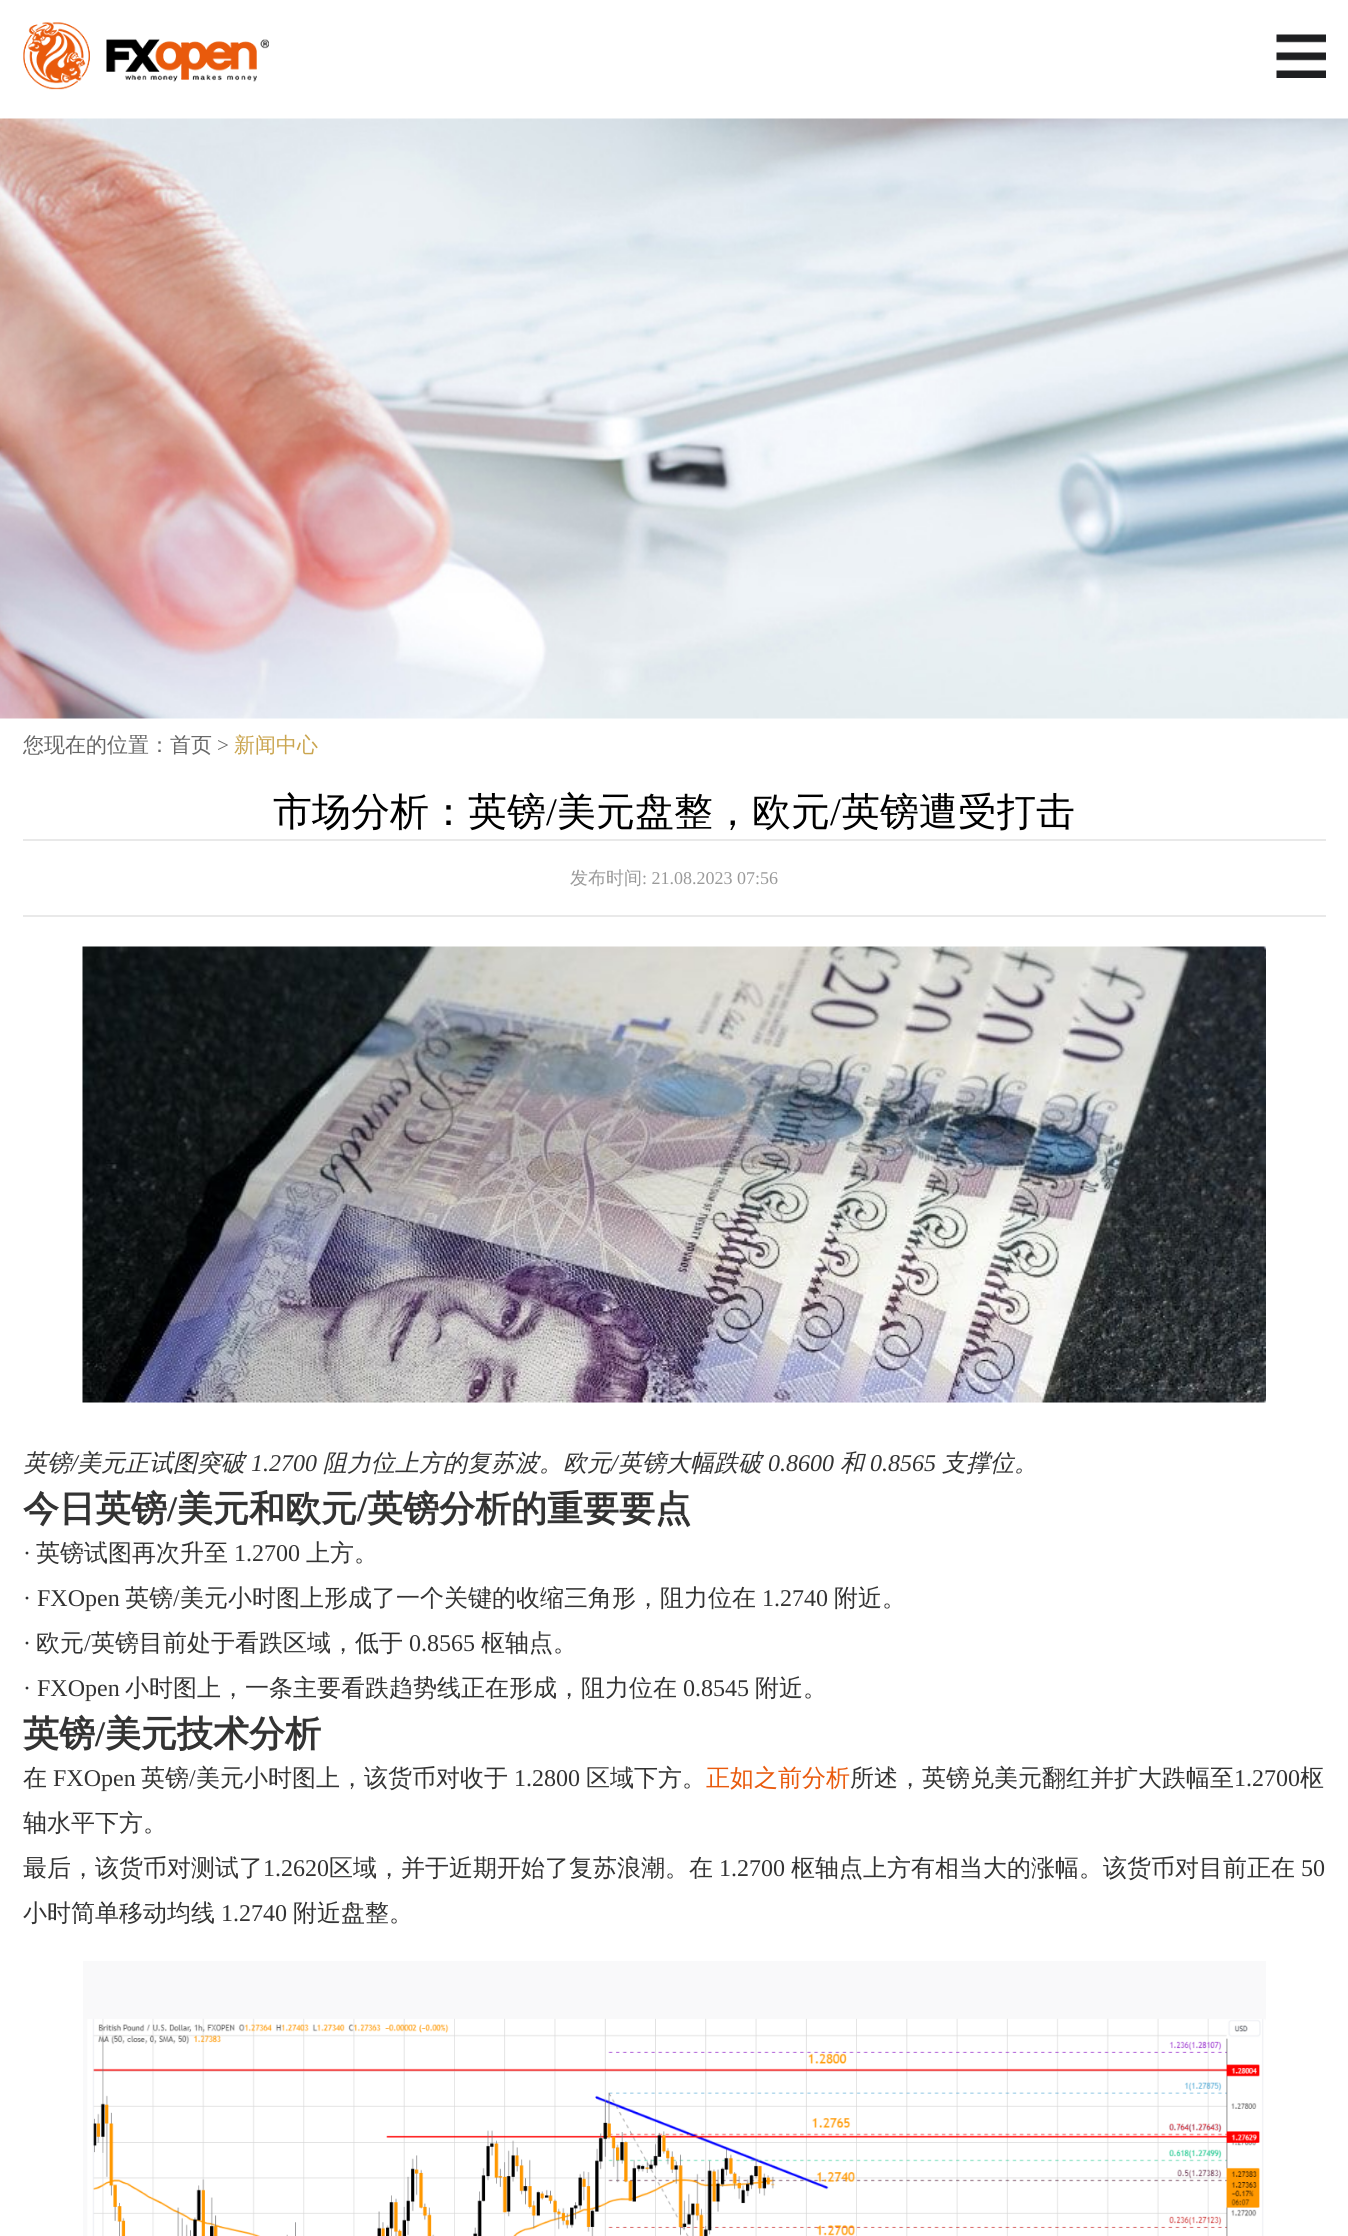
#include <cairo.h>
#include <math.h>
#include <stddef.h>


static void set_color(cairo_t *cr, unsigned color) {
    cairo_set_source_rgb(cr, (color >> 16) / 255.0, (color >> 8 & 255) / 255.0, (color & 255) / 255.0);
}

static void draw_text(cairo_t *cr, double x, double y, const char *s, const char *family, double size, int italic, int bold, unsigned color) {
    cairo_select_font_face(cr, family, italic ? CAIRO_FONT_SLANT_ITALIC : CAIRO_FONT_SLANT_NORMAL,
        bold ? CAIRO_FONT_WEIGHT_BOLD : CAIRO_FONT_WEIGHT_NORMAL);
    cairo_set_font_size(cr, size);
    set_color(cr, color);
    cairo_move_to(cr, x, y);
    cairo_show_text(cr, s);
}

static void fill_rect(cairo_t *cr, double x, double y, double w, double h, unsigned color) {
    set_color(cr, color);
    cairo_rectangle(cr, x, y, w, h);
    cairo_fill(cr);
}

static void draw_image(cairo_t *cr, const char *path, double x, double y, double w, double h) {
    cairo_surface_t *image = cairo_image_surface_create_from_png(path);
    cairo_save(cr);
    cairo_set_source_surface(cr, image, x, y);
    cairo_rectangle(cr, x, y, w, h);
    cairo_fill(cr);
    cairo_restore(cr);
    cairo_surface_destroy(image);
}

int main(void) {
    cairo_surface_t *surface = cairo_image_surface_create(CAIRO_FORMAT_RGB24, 1348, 2236);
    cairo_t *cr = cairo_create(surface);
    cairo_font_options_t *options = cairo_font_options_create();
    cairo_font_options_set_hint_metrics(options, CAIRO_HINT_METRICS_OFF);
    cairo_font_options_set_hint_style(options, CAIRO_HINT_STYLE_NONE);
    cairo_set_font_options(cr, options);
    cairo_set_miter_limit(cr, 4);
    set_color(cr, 0xFFFFFF);
    cairo_paint(cr);
    draw_image(cr, "assets/img1.png", 23, 22, 246, 68);
    draw_image(cr, "assets/img2.png", 1276, 34, 50, 44);
    draw_image(cr, "assets/img3.png", 0, 118, 1348, 601);
    draw_text(cr, 23, 752, "您现在的位置：首页", "WenQuanYi Zen Hei Medium", 21, 0, 0, 0x666666);
    draw_text(cr, 217, 752, ">", "Liberation Serif", 21, 0, 0, 0x666666);
    draw_text(cr, 234, 752, "新闻中心", "WenQuanYi Zen Hei Medium", 21, 0, 0, 0xCAA54F);
    fill_rect(cr, 23, 839, 1303, 2, 0xE9E9E9);
    draw_text(cr, 273, 825, "市场分析：英镑", "WenQuanYi Zen Hei Medium", 39, 0, 0, 0x000000);
    draw_text(cr, 546, 825, "/", "Liberation Serif", 39, 0, 0, 0x000000);
    draw_text(cr, 557, 825, "美元盘整，欧元", "WenQuanYi Zen Hei Medium", 39, 0, 0, 0x000000);
    draw_text(cr, 830, 825, "/", "Liberation Serif", 39, 0, 0, 0x000000);
    draw_text(cr, 841, 825, "英镑遭受打击", "WenQuanYi Zen Hei Medium", 39, 0, 0, 0x000000);
    fill_rect(cr, 23, 915, 1303, 2, 0xE9E9E9);
    draw_text(cr, 570, 884, "发布时间", "WenQuanYi Zen Hei Medium", 18, 0, 0, 0x999999);
    draw_text(cr, 642, 884, ": 21.08.2023 07:56", "Liberation Serif", 18, 0, 0, 0x999999);
    draw_image(cr, "assets/img4.png", 82, 946, 1184, 457);
    draw_text(cr, 23, 1471, "英镑", "WenQuanYi Zen Hei Medium", 24, 1, 0, 0x333333);
    draw_text(cr, 71, 1471, "/", "Liberation Serif", 24, 1, 0, 0x333333);
    draw_text(cr, 77, 1471, "美元正试图突破", "WenQuanYi Zen Hei Medium", 24, 1, 0, 0x333333);
    draw_text(cr, 323, 1471, "阻力位上方的复苏波。欧元", "WenQuanYi Zen Hei Medium", 24, 1, 0, 0x333333);
    draw_text(cr, 611, 1471, "/", "Liberation Serif", 24, 1, 0, 0x333333);
    draw_text(cr, 618, 1471, "英镑大幅跌破", "WenQuanYi Zen Hei Medium", 24, 1, 0, 0x333333);
    draw_text(cr, 840, 1471, "和", "WenQuanYi Zen Hei Medium", 24, 1, 0, 0x333333);
    draw_text(cr, 942, 1471, "支撑位。", "WenQuanYi Zen Hei Medium", 24, 1, 0, 0x333333);
    draw_text(cr, 251, 1471, "1.2700", "Liberation Serif", 24, 1, 0, 0x333333);
    draw_text(cr, 768, 1471, "0.8600", "Liberation Serif", 24, 1, 0, 0x333333);
    draw_text(cr, 870, 1471, "0.8565", "Liberation Serif", 24, 1, 0, 0x333333);
    draw_text(cr, 23, 1521, "今日英镑", "WenQuanYi Zen Hei", 36, 0, 1, 0x333333);
    draw_text(cr, 167, 1521, "/", "Liberation Serif", 36, 0, 1, 0x333333);
    draw_text(cr, 177, 1521, "美元和欧元", "WenQuanYi Zen Hei", 36, 0, 1, 0x333333);
    draw_text(cr, 357, 1521, "/", "Liberation Serif", 36, 0, 1, 0x333333);
    draw_text(cr, 367, 1521, "英镑分析的重要要点", "WenQuanYi Zen Hei", 36, 0, 1, 0x333333);
    draw_text(cr, 23, 1561, "·", "Liberation Serif", 24, 0, 0, 0x333333);
    draw_text(cr, 36, 1561, "英镑试图再次升至", "WenQuanYi Zen Hei Medium", 24, 0, 0, 0x333333);
    draw_text(cr, 234, 1561, "1.2700", "Liberation Serif", 24, 0, 0, 0x333333);
    draw_text(cr, 306, 1561, "上方。", "WenQuanYi Zen Hei Medium", 24, 0, 0, 0x333333);
    draw_text(cr, 23, 1606, "· FXOpen", "Liberation Serif", 24, 0, 0, 0x333333);
    draw_text(cr, 125, 1606, "英镑", "WenQuanYi Zen Hei Medium", 24, 0, 0, 0x333333);
    draw_text(cr, 173, 1606, "/", "Liberation Serif", 24, 0, 0, 0x333333);
    draw_text(cr, 180, 1606, "美元小时图上形成了一个关键的收缩三角形，阻力位在", "WenQuanYi Zen Hei Medium", 24, 0, 0, 0x333333);
    draw_text(cr, 762, 1606, "1.2740", "Liberation Serif", 24, 0, 0, 0x333333);
    draw_text(cr, 834, 1606, "附近。", "WenQuanYi Zen Hei Medium", 24, 0, 0, 0x333333);
    draw_text(cr, 23, 1651, "·", "Liberation Serif", 24, 0, 0, 0x333333);
    draw_text(cr, 36, 1651, "欧元", "WenQuanYi Zen Hei Medium", 24, 0, 0, 0x333333);
    draw_text(cr, 84, 1651, "/", "Liberation Serif", 24, 0, 0, 0x333333);
    draw_text(cr, 91, 1651, "英镑目前处于看跌区域，低于", "WenQuanYi Zen Hei Medium", 24, 0, 0, 0x333333);
    draw_text(cr, 409, 1651, "0.8565", "Liberation Serif", 24, 0, 0, 0x333333);
    draw_text(cr, 481, 1651, "枢轴点。", "WenQuanYi Zen Hei Medium", 24, 0, 0, 0x333333);
    draw_text(cr, 23, 1696, "· FXOpen", "Liberation Serif", 24, 0, 0, 0x333333);
    draw_text(cr, 125, 1696, "小时图上，一条主要看跌趋势线正在形成，阻力位在", "WenQuanYi Zen Hei Medium", 24, 0, 0, 0x333333);
    draw_text(cr, 683, 1696, "0.8545", "Liberation Serif", 24, 0, 0, 0x333333);
    draw_text(cr, 755, 1696, "附近。", "WenQuanYi Zen Hei Medium", 24, 0, 0, 0x333333);
    draw_text(cr, 23, 1746, "英镑", "WenQuanYi Zen Hei", 36, 0, 1, 0x333333);
    draw_text(cr, 95, 1746, "/", "Liberation Serif", 36, 0, 1, 0x333333);
    draw_text(cr, 105, 1746, "美元技术分析", "WenQuanYi Zen Hei", 36, 0, 1, 0x333333);
    draw_text(cr, 23, 1786, "在", "WenQuanYi Zen Hei Medium", 24, 0, 0, 0x333333);
    draw_text(cr, 53, 1786, "FXOpen", "Liberation Serif", 24, 0, 0, 0x333333);
    draw_text(cr, 141, 1786, "英镑", "WenQuanYi Zen Hei Medium", 24, 0, 0, 0x333333);
    draw_text(cr, 189, 1786, "/", "Liberation Serif", 24, 0, 0, 0x333333);
    draw_text(cr, 196, 1786, "美元小时图上，该货币对收于", "WenQuanYi Zen Hei Medium", 24, 0, 0, 0x333333);
    draw_text(cr, 514, 1786, "1.2800", "Liberation Serif", 24, 0, 0, 0x333333);
    draw_text(cr, 586, 1786, "区域下方。", "WenQuanYi Zen Hei Medium", 24, 0, 0, 0x333333);
    draw_text(cr, 706, 1786, "正如之前分析", "WenQuanYi Zen Hei Medium", 24, 0, 0, 0xE95A0C);
    draw_text(cr, 850, 1786, "所述，英镑兑美元翻红并扩大跌幅至", "WenQuanYi Zen Hei Medium", 24, 0, 0, 0x333333);
    draw_text(cr, 1234, 1786, "1.2700", "Liberation Serif", 24, 0, 0, 0x333333);
    draw_text(cr, 1300, 1786, "枢", "WenQuanYi Zen Hei Medium", 24, 0, 0, 0x333333);
    draw_text(cr, 23, 1831, "轴水平下方。", "WenQuanYi Zen Hei Medium", 24, 0, 0, 0x333333);
    draw_text(cr, 23, 1876, "最后，该货币对测试了", "WenQuanYi Zen Hei Medium", 24, 0, 0, 0x333333);
    draw_text(cr, 263, 1876, "1.2620", "Liberation Serif", 24, 0, 0, 0x333333);
    draw_text(cr, 329, 1876, "区域，并于近期开始了复苏浪潮。在", "WenQuanYi Zen Hei Medium", 24, 0, 0, 0x333333);
    draw_text(cr, 719, 1876, "1.2700", "Liberation Serif", 24, 0, 0, 0x333333);
    draw_text(cr, 791, 1876, "枢轴点上方有相当大的涨幅。该货币对目前正在", "WenQuanYi Zen Hei Medium", 24, 0, 0, 0x333333);
    draw_text(cr, 1301, 1876, "50", "Liberation Serif", 24, 0, 0, 0x333333);
    draw_text(cr, 23, 1921, "小时简单移动均线", "WenQuanYi Zen Hei Medium", 24, 0, 0, 0x333333);
    draw_text(cr, 221, 1921, "1.2740", "Liberation Serif", 24, 0, 0, 0x333333);
    draw_text(cr, 293, 1921, "附近盘整。", "WenQuanYi Zen Hei Medium", 24, 0, 0, 0x333333);
    draw_image(cr, "assets/img5.png", 83, 1961, 1183, 275);
    cairo_surface_write_to_png(surface, "output.png");
    cairo_font_options_destroy(options);
    cairo_destroy(cr);
    cairo_surface_destroy(surface);
    return 0;
}
